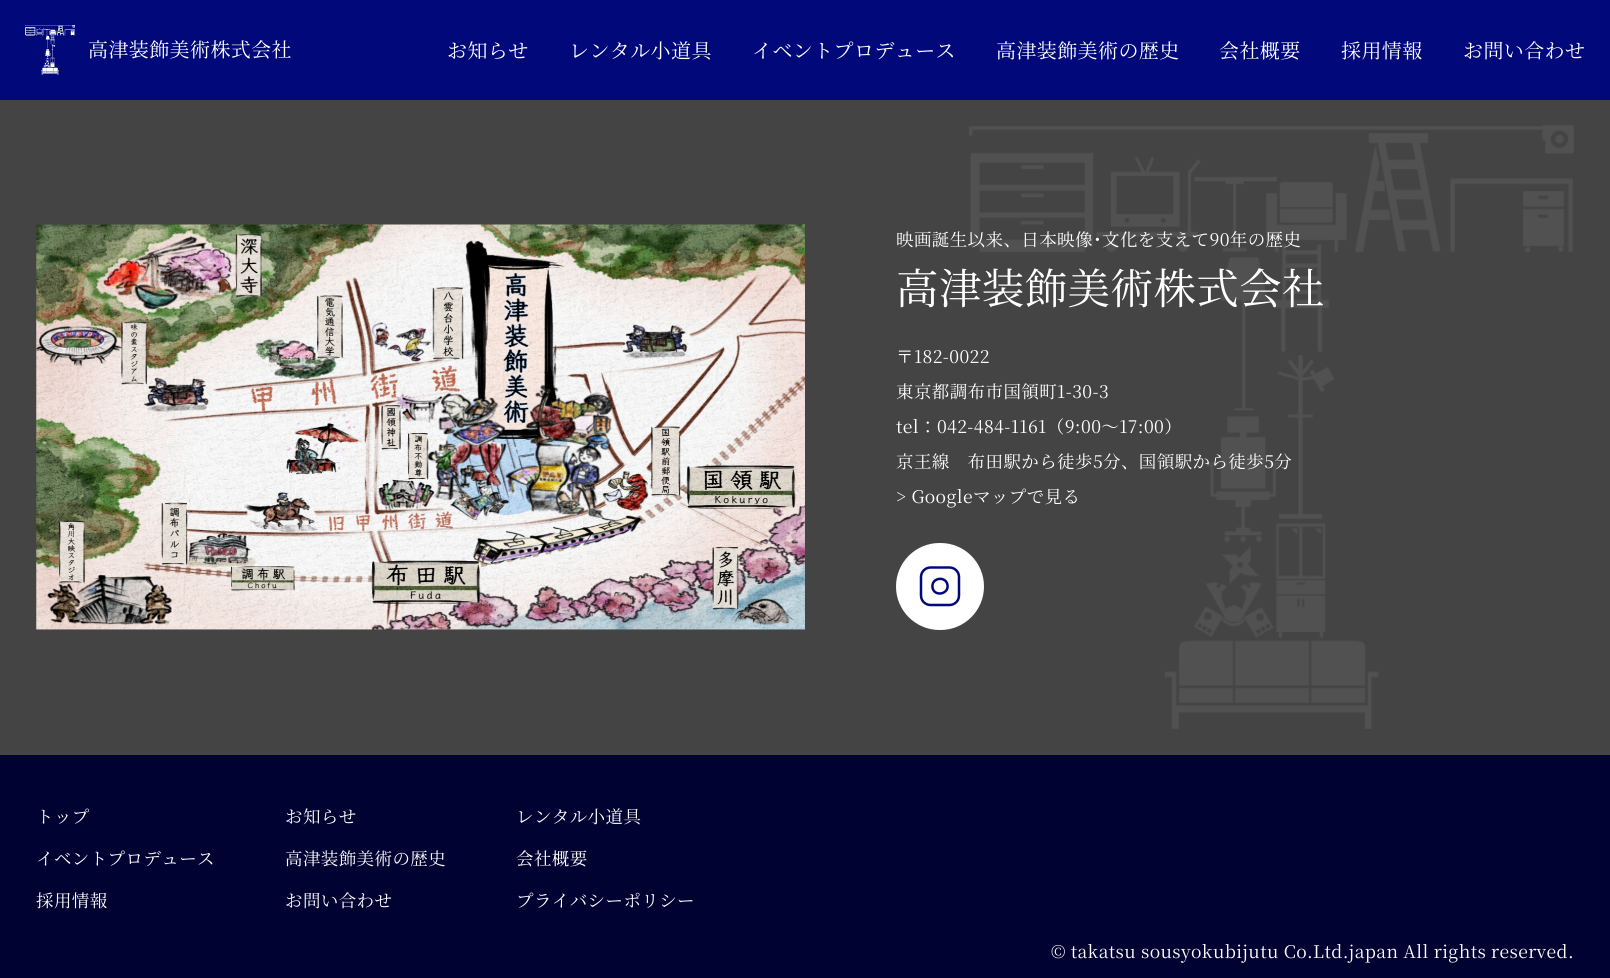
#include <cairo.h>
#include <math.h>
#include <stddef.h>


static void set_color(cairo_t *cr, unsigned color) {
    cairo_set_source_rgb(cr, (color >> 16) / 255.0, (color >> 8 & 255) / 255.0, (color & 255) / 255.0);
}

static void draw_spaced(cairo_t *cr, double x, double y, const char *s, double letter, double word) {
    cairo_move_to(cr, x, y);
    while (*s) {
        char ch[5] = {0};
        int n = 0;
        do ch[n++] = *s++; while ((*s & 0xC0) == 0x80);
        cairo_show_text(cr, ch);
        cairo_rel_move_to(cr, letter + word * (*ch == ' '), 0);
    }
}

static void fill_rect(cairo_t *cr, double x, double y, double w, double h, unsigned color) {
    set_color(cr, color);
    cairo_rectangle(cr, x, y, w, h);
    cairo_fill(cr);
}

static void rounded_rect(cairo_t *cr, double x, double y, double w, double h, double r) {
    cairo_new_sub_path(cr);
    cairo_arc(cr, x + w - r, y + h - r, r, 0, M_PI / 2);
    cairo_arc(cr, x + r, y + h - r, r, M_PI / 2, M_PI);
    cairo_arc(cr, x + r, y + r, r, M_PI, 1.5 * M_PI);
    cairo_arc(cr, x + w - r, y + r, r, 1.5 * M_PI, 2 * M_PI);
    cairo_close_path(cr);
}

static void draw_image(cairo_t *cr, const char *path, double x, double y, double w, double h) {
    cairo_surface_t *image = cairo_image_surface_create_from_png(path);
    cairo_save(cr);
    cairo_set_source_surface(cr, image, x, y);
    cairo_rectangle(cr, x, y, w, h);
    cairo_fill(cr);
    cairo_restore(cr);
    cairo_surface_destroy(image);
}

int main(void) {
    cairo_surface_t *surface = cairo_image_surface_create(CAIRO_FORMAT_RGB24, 1610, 978);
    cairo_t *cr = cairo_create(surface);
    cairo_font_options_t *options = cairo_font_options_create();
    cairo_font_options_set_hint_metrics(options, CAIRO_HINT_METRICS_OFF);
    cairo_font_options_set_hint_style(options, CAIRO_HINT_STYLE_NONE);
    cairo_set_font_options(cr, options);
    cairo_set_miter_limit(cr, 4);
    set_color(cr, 0x000332);
    cairo_paint(cr);
    fill_rect(cr, 0, 0, 1610, 100, 0x00087A);
    draw_image(cr, "assets/img1.png", 25, 25, 50, 50);
    cairo_select_font_face(cr, "Noto Serif JP", CAIRO_FONT_SLANT_NORMAL, CAIRO_FONT_WEIGHT_NORMAL);
    cairo_set_font_size(cr, 20);
    set_color(cr, 0xFFFFFF);
    draw_spaced(cr, 88, 57, "高津装飾美術株式会社", 0.4, 0);
    draw_spaced(cr, 447, 58, "お知らせ", 0.4, 0);
    draw_spaced(cr, 569, 58, "レンタル小道具", 0.4, 0);
    draw_spaced(cr, 752, 58, "イベントプロデュース", 0.4, 0);
    draw_spaced(cr, 996, 58, "高津装飾美術の歴史", 0.4, 0);
    draw_spaced(cr, 1219, 58, "会社概要", 0.4, 0);
    draw_spaced(cr, 1341, 58, "採用情報", 0.4, 0);
    draw_spaced(cr, 1463, 58, "お問い合わせ", 0.4, 0);
    fill_rect(cr, 0, 100, 1610, 655, 0x444444);
    draw_image(cr, "assets/img2.png", 36, 224, 769, 406);
    draw_image(cr, "assets/img3.png", 969, 125, 605, 604);
    cairo_set_font_size(cr, 17.5);
    set_color(cr, 0xFFFFFF);
    draw_spaced(cr, 896, 246, "映画誕生以来、日本映像･文化を支えて90年の歴史", 0.4, 0);
    cairo_set_font_size(cr, 42.5);
    draw_spaced(cr, 896, 304, "高津装飾美術株式会社", 0.4, 0);
    cairo_set_font_size(cr, 17.5);
    draw_spaced(cr, 896, 363, "〒182-0022", 0.4, 0);
    draw_spaced(cr, 896, 398, "東京都調布市国領町1-30-3", 0.4, 0);
    draw_spaced(cr, 896, 433, "tel：042-484-1161（9:00〜17:00）", 0.4, 0);
    draw_spaced(cr, 896, 468, "京王線　布田駅から徒歩5分、国領駅から徒歩5分", 0.4, 0);
    draw_spaced(cr, 896, 503, "> Googleマップで見る", 0.4, 0);
    rounded_rect(cr, 896, 543, 88, 87, 43.5);
    cairo_fill(cr);
    cairo_new_path(cr);
    cairo_move_to(cr, 930.5, 567.5);
    cairo_line_to(cr, 949.5, 567.5);
    cairo_curve_to(cr, 954.5, 567.5, 959, 571.5, 959, 577);
    cairo_line_to(cr, 959, 595.5);
    cairo_curve_to(cr, 959, 601, 954.5, 605, 949.5, 605);
    cairo_line_to(cr, 930.5, 605);
    cairo_curve_to(cr, 925.5, 605, 921, 601, 921, 595.5);
    cairo_line_to(cr, 921, 577);
    cairo_curve_to(cr, 921, 571.5, 925.5, 567.5, 930.5, 567.5);
    cairo_close_path(cr);
    cairo_move_to(cr, 947.5, 585);
    cairo_curve_to(cr, 949, 594.5, 934, 597, 932.5, 587.5);
    cairo_curve_to(cr, 931, 577.5, 946, 575.5, 947.5, 585);
    cairo_close_path(cr);
    set_color(cr, 0x00087A);
    cairo_set_line_width(cr, 2.5);
    cairo_set_line_cap(cr, CAIRO_LINE_CAP_ROUND);
    cairo_set_line_join(cr, CAIRO_LINE_JOIN_ROUND);
    cairo_stroke(cr);
    set_color(cr, 0xFFFFFF);
    draw_spaced(cr, 36, 823, "トップ", 0.4, 0);
    draw_spaced(cr, 285, 823, "お知らせ", 0.4, 0);
    draw_spaced(cr, 516, 823, "レンタル小道具", 0.4, 0);
    draw_spaced(cr, 36, 865, "イベントプロデュース", 0.4, 0);
    draw_spaced(cr, 285, 865, "高津装飾美術の歴史", 0.4, 0);
    draw_spaced(cr, 516, 865, "会社概要", 0.4, 0);
    draw_spaced(cr, 36, 907, "採用情報", 0.4, 0);
    draw_spaced(cr, 285, 907, "お問い合わせ", 0.4, 0);
    draw_spaced(cr, 516, 907, "プライバシーポリシー", 0.4, 0);
    draw_spaced(cr, 1051, 958, "© takatsu sousyokubijutu Co.Ltd.japan All rights reserved.", 0.4, 0);
    cairo_surface_write_to_png(surface, "output.png");
    cairo_font_options_destroy(options);
    cairo_destroy(cr);
    cairo_surface_destroy(surface);
    return 0;
}
